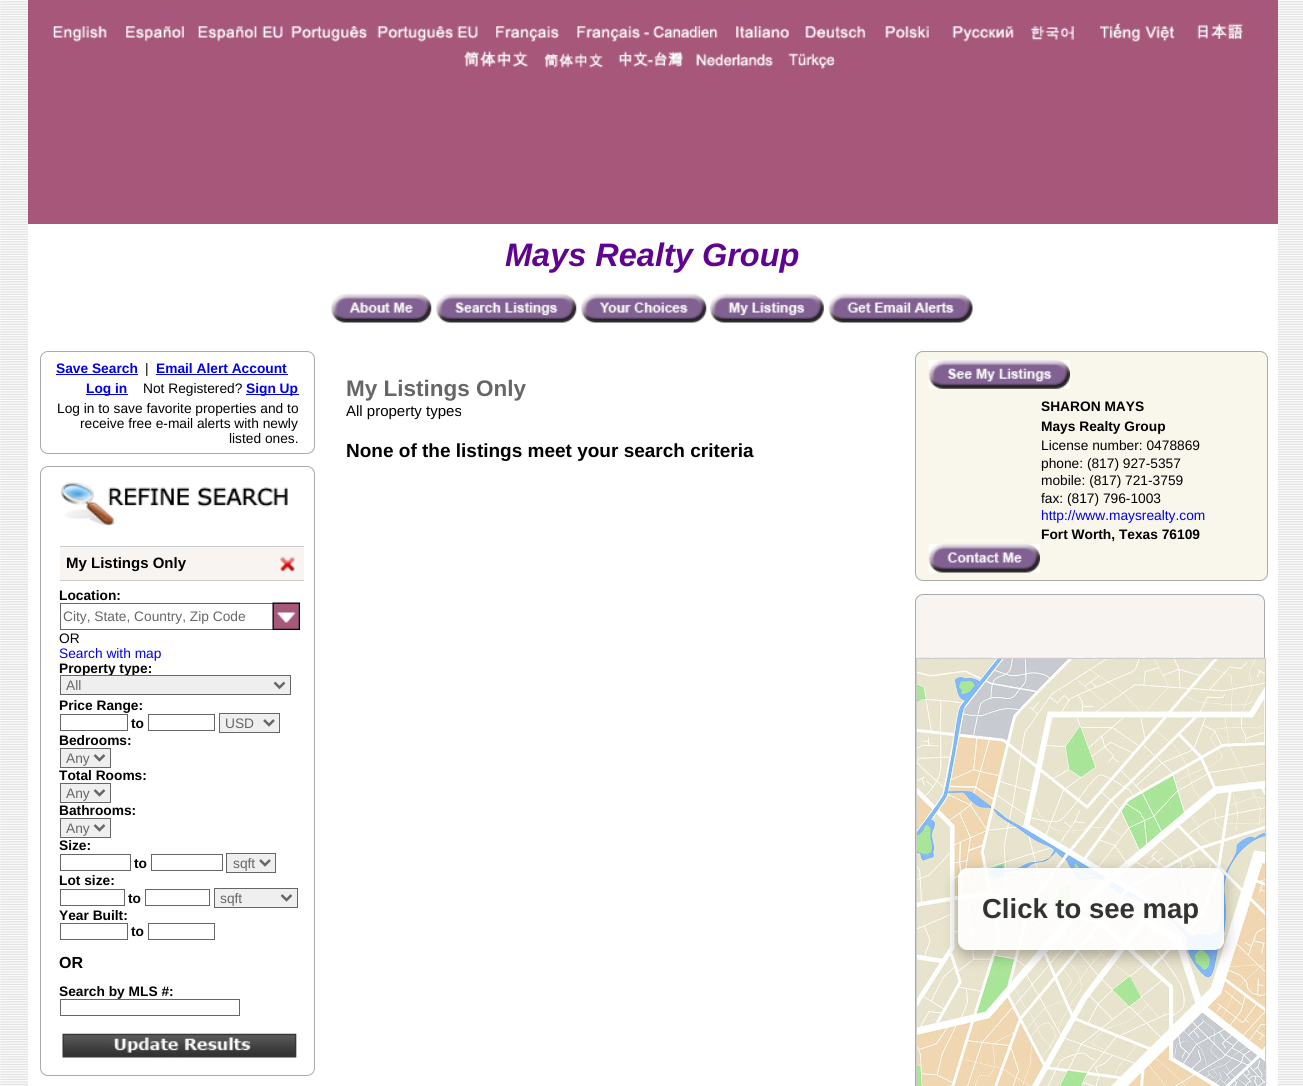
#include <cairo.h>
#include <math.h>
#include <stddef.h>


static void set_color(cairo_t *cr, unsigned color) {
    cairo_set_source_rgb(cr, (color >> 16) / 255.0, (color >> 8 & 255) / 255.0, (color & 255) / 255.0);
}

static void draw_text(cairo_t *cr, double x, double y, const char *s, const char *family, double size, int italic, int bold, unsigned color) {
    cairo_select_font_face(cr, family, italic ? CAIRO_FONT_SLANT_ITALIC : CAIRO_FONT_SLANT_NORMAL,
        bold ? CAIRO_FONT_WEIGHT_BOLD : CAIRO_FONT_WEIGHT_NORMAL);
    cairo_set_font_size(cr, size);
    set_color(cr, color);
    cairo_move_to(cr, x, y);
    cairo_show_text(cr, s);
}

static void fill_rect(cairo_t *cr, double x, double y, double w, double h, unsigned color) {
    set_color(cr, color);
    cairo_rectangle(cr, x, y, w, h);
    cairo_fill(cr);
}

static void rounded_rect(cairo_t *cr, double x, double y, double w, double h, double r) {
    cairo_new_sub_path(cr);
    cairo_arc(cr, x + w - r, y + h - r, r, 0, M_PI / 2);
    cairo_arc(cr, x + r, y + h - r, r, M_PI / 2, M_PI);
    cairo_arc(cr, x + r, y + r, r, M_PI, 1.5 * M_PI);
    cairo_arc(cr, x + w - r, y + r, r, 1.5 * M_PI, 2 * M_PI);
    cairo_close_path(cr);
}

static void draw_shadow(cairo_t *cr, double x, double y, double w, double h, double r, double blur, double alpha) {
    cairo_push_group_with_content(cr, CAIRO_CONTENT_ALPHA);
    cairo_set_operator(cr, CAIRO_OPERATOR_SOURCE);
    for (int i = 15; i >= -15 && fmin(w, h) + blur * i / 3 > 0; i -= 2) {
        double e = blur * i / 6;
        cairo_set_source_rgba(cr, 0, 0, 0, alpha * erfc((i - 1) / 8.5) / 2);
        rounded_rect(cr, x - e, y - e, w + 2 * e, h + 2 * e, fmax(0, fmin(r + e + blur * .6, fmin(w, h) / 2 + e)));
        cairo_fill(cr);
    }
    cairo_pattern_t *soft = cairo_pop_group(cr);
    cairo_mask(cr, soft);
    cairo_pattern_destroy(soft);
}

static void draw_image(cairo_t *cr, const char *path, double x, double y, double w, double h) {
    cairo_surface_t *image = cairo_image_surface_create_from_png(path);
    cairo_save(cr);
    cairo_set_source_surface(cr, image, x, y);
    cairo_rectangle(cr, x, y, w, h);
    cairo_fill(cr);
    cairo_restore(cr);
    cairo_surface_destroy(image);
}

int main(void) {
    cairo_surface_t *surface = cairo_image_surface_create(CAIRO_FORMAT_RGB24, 1303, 1086);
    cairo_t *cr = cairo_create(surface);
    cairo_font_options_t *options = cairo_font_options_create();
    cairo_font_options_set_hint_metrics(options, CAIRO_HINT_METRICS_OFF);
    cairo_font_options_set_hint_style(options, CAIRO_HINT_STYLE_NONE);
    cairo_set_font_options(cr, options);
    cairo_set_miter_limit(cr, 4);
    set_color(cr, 0xFFFFFF);
    cairo_paint(cr);
    draw_image(cr, "assets/img1.png", 0, 0, 1303, 1086);
    fill_rect(cr, 28, 0, 1250, 224, 0xA7577A);
    draw_image(cr, "assets/img2.png", 53, 26, 54, 16);
    draw_image(cr, "assets/img3.png", 126, 26, 58, 16);
    draw_image(cr, "assets/img4.png", 198, 26, 85, 16);
    draw_image(cr, "assets/img5.png", 291, 26, 76, 16);
    draw_image(cr, "assets/img6.png", 377, 26, 101, 16);
    draw_image(cr, "assets/img7.png", 496, 26, 63, 16);
    draw_image(cr, "assets/img8.png", 577, 26, 141, 16);
    draw_image(cr, "assets/img9.png", 736, 26, 53, 13);
    draw_image(cr, "assets/img10.png", 805, 26, 61, 13);
    draw_image(cr, "assets/img11.png", 885, 26, 44, 13);
    draw_image(cr, "assets/img12.png", 952, 26, 62, 16);
    draw_image(cr, "assets/img13.png", 1031, 26, 43, 15);
    draw_image(cr, "assets/img14.png", 1099, 23, 76, 19);
    draw_image(cr, "assets/img15.png", 1197, 23, 46, 16);
    draw_image(cr, "assets/img16.png", 463, 51, 65, 16);
    draw_image(cr, "assets/img17.png", 544, 53, 59, 15);
    draw_image(cr, "assets/img18.png", 618, 51, 65, 16);
    draw_image(cr, "assets/img19.png", 696, 53, 77, 14);
    draw_image(cr, "assets/img20.png", 788, 53, 48, 16);
    fill_rect(cr, 28, 224, 1250, 862, 0xFFFFFF);
    draw_text(cr, 505, 266, "Mays Realty Group", "Liberation Sans", 32.5, 1, 1, 0x5F0390);
    draw_image(cr, "assets/img21.png", 331, 293, 101, 30);
    draw_image(cr, "assets/img22.png", 436, 293, 141, 30);
    draw_image(cr, "assets/img23.png", 581, 293, 126, 30);
    draw_image(cr, "assets/img24.png", 710, 293, 114, 30);
    draw_image(cr, "assets/img25.png", 828, 293, 145, 30);
    rounded_rect(cr, 40.5, 351.5, 274, 102, 7.5);
    set_color(cr, 0xAAAAAA);
    cairo_set_line_width(cr, 1);
    cairo_stroke(cr);
    draw_text(cr, 56, 373, "Save Search", "Liberation Sans", 13.75, 0, 1, 0x0000EE);
    fill_rect(cr, 56, 374, 82, 1, 0x0000EE);
    draw_text(cr, 145, 373, "|", "Liberation Sans", 13.75, 0, 0, 0x000000);
    draw_text(cr, 156, 373, "Email Alert Account", "Liberation Sans", 13.75, 0, 1, 0x0000EE);
    fill_rect(cr, 156, 374, 132, 1, 0x0000EE);
    fill_rect(cr, 86, 394, 42, 1, 0x0000EE);
    draw_text(cr, 86, 393, "Log in", "Liberation Sans", 13.75, 0, 1, 0x0000EE);
    draw_text(cr, 143, 393, "Not Registered?", "Liberation Sans", 13.75, 0, 0, 0x000000);
    fill_rect(cr, 246, 394, 53, 1, 0x0000EE);
    draw_text(cr, 246, 393, "Sign Up", "Liberation Sans", 13.75, 0, 1, 0x0000EE);
    draw_text(cr, 57, 413, "Log in to save favorite properties and to", "Liberation Sans", 13.75, 0, 0, 0x000000);
    draw_text(cr, 80, 428, "receive free e-mail alerts with newly", "Liberation Sans", 13.75, 0, 0, 0x000000);
    draw_text(cr, 229, 443, "listed ones.", "Liberation Sans", 13.75, 0, 0, 0x000000);
    rounded_rect(cr, 40.5, 466.5, 274, 609, 7.5);
    set_color(cr, 0xAAAAAA);
    cairo_stroke(cr);
    draw_image(cr, "assets/img26.png", 61, 482, 227, 44);
    fill_rect(cr, 60, 547, 244, 33, 0xF8F4F1);
    fill_rect(cr, 60, 546, 244, 1, 0xCCCCCC);
    fill_rect(cr, 60, 580, 244, 1, 0xCCCCCC);
    draw_text(cr, 66, 568, "My Listings Only", "Liberation Sans", 15, 0, 1, 0x000000);
    draw_image(cr, "assets/img27.png", 280, 556, 15, 16);
    draw_text(cr, 59, 600, "Location:", "Liberation Sans", 13.75, 0, 1, 0x000000);
    cairo_rectangle(cr, 60.5, 603.5, 213, 26);
    set_color(cr, 0x666666);
    cairo_stroke(cr);
    draw_text(cr, 63, 621, "City, State, Country, Zip Code", "Liberation Sans", 13.75, 0, 0, 0x666666);
    draw_image(cr, "assets/img28.png", 272, 602, 28, 28);
    draw_text(cr, 59, 643, "OR", "Liberation Sans", 13.75, 0, 0, 0x000000);
    draw_text(cr, 59, 658, "Search with map", "Liberation Sans", 13.75, 0, 0, 0x0000EE);
    draw_text(cr, 59, 673, "Property type:", "Liberation Sans", 13.75, 0, 1, 0x000000);
    set_color(cr, 0xEFEFEF);
    cairo_rectangle(cr, 60.5, 675.5, 230, 19);
    cairo_fill_preserve(cr);
    set_color(cr, 0x666666);
    cairo_stroke(cr);
    cairo_new_path(cr);
    cairo_move_to(cr, 274.5, 682.5);
    cairo_line_to(cr, 279.5, 687.5);
    cairo_line_to(cr, 284.5, 682.5);
    cairo_set_line_width(cr, 2.5);
    cairo_stroke(cr);
    draw_text(cr, 66, 690, "All", "Liberation Sans", 13.75, 0, 0, 0x666666);
    draw_text(cr, 59, 710, "Price Range:", "Liberation Sans", 13.75, 0, 1, 0x000000);
    cairo_rectangle(cr, 60.5, 714.5, 67, 16);
    set_color(cr, 0x666666);
    cairo_set_line_width(cr, 1);
    cairo_stroke(cr);
    draw_text(cr, 131, 728, "to", "Liberation Sans", 13.75, 0, 1, 0x000000);
    cairo_rectangle(cr, 148.5, 714.5, 66, 16);
    set_color(cr, 0x666666);
    cairo_stroke(cr);
    set_color(cr, 0xEFEFEF);
    cairo_rectangle(cr, 219.5, 713.5, 60, 19);
    cairo_fill_preserve(cr);
    set_color(cr, 0x666666);
    cairo_stroke(cr);
    cairo_new_path(cr);
    cairo_move_to(cr, 264, 720);
    cairo_line_to(cr, 269, 725);
    cairo_line_to(cr, 274, 720);
    cairo_set_line_width(cr, 2.5);
    cairo_stroke(cr);
    draw_text(cr, 225, 728, "USD", "Liberation Sans", 13.75, 0, 0, 0x666666);
    draw_text(cr, 59, 745, "Bedrooms:", "Liberation Sans", 13.75, 0, 1, 0x000000);
    set_color(cr, 0xEFEFEF);
    cairo_rectangle(cr, 60.5, 748.5, 50, 19);
    cairo_fill_preserve(cr);
    set_color(cr, 0x666666);
    cairo_set_line_width(cr, 1);
    cairo_stroke(cr);
    cairo_new_path(cr);
    cairo_move_to(cr, 94.5, 755);
    cairo_line_to(cr, 99.5, 760);
    cairo_line_to(cr, 104.5, 755);
    cairo_set_line_width(cr, 2.5);
    cairo_stroke(cr);
    draw_text(cr, 66, 763, "Any", "Liberation Sans", 13.75, 0, 0, 0x666666);
    draw_text(cr, 59, 780, "Total Rooms:", "Liberation Sans", 13.75, 0, 1, 0x000000);
    set_color(cr, 0xEFEFEF);
    cairo_rectangle(cr, 60.5, 783.5, 50, 19);
    cairo_fill_preserve(cr);
    set_color(cr, 0x666666);
    cairo_set_line_width(cr, 1);
    cairo_stroke(cr);
    cairo_new_path(cr);
    cairo_move_to(cr, 94.5, 790);
    cairo_line_to(cr, 99.5, 795);
    cairo_line_to(cr, 104.5, 790);
    cairo_set_line_width(cr, 2.5);
    cairo_stroke(cr);
    draw_text(cr, 66, 798, "Any", "Liberation Sans", 13.75, 0, 0, 0x666666);
    draw_text(cr, 59, 815, "Bathrooms:", "Liberation Sans", 13.75, 0, 1, 0x000000);
    set_color(cr, 0xEFEFEF);
    cairo_rectangle(cr, 60.5, 818.5, 50, 19);
    cairo_fill_preserve(cr);
    set_color(cr, 0x666666);
    cairo_set_line_width(cr, 1);
    cairo_stroke(cr);
    cairo_new_path(cr);
    cairo_move_to(cr, 94.5, 825);
    cairo_line_to(cr, 99.5, 830);
    cairo_line_to(cr, 104.5, 825);
    cairo_set_line_width(cr, 2.5);
    cairo_stroke(cr);
    draw_text(cr, 66, 833, "Any", "Liberation Sans", 13.75, 0, 0, 0x666666);
    draw_text(cr, 59, 850, "Size:", "Liberation Sans", 13.75, 0, 1, 0x000000);
    cairo_rectangle(cr, 60.5, 854.5, 70, 16);
    set_color(cr, 0x666666);
    cairo_set_line_width(cr, 1);
    cairo_stroke(cr);
    draw_text(cr, 134, 868, "to", "Liberation Sans", 13.75, 0, 1, 0x000000);
    cairo_rectangle(cr, 151.5, 854.5, 71, 16);
    set_color(cr, 0x666666);
    cairo_stroke(cr);
    set_color(cr, 0xEFEFEF);
    cairo_rectangle(cr, 226.5, 853.5, 49, 19);
    cairo_fill_preserve(cr);
    set_color(cr, 0x666666);
    cairo_stroke(cr);
    cairo_new_path(cr);
    cairo_move_to(cr, 260, 860);
    cairo_line_to(cr, 265, 865);
    cairo_line_to(cr, 270, 860);
    cairo_set_line_width(cr, 2.5);
    cairo_stroke(cr);
    draw_text(cr, 233, 868, "sqft", "Liberation Sans", 13.75, 0, 0, 0x666666);
    draw_text(cr, 59, 885, "Lot size:", "Liberation Sans", 13.75, 0, 1, 0x000000);
    cairo_rectangle(cr, 60.5, 889.5, 64, 16);
    set_color(cr, 0x666666);
    cairo_set_line_width(cr, 1);
    cairo_stroke(cr);
    draw_text(cr, 128, 903, "to", "Liberation Sans", 13.75, 0, 1, 0x000000);
    cairo_rectangle(cr, 145.5, 889.5, 64, 16);
    set_color(cr, 0x666666);
    cairo_stroke(cr);
    set_color(cr, 0xEFEFEF);
    cairo_rectangle(cr, 214.5, 888.5, 83, 19);
    cairo_fill_preserve(cr);
    set_color(cr, 0x666666);
    cairo_stroke(cr);
    cairo_new_path(cr);
    cairo_move_to(cr, 281.5, 895);
    cairo_line_to(cr, 286.5, 900);
    cairo_line_to(cr, 291.5, 895);
    cairo_set_line_width(cr, 2.5);
    cairo_stroke(cr);
    draw_text(cr, 220, 903, "sqft", "Liberation Sans", 13.75, 0, 0, 0x666666);
    draw_text(cr, 59, 920, "Year Built:", "Liberation Sans", 13.75, 0, 1, 0x000000);
    cairo_rectangle(cr, 60.5, 923.5, 67, 16);
    set_color(cr, 0x666666);
    cairo_set_line_width(cr, 1);
    cairo_stroke(cr);
    draw_text(cr, 131, 936, "to", "Liberation Sans", 13.75, 0, 1, 0x000000);
    cairo_rectangle(cr, 148.5, 923.5, 66, 16);
    set_color(cr, 0x666666);
    cairo_stroke(cr);
    draw_text(cr, 59, 968, "OR", "Liberation Sans", 16, 0, 1, 0x000000);
    draw_text(cr, 59, 996, "Search by MLS #:", "Liberation Sans", 13.75, 0, 1, 0x000000);
    cairo_rectangle(cr, 60.5, 999.5, 179, 16);
    set_color(cr, 0x666666);
    cairo_stroke(cr);
    draw_image(cr, "assets/img29.png", 62, 1033, 235, 25);
    draw_text(cr, 346, 396, "My Listings Only", "Liberation Sans", 22.5, 0, 1, 0x666666);
    draw_text(cr, 346, 416, "All property types", "Liberation Sans", 15, 0, 0, 0x000000);
    draw_text(cr, 346, 457, "None of the listings meet your search criteria", "Liberation Sans", 19, 0, 1, 0x000000);
    set_color(cr, 0xF9F6EC);
    rounded_rect(cr, 915.5, 351.5, 352, 229, 7.5);
    cairo_fill_preserve(cr);
    set_color(cr, 0xAAAAAA);
    cairo_stroke(cr);
    draw_image(cr, "assets/img30.png", 928, 360, 142, 29);
    draw_text(cr, 1041, 411, "SHARON MAYS", "Liberation Sans", 13.75, 0, 1, 0x000000);
    draw_text(cr, 1041, 431, "Mays Realty Group", "Liberation Sans", 13.75, 0, 1, 0x000000);
    draw_text(cr, 1041, 450, "License number: 0478869", "Liberation Sans", 13.75, 0, 0, 0x000000);
    draw_text(cr, 1041, 468, "phone: (817) 927-5357", "Liberation Sans", 13.75, 0, 0, 0x000000);
    draw_text(cr, 1041, 485, "mobile: (817) 721-3759", "Liberation Sans", 13.75, 0, 0, 0x000000);
    draw_text(cr, 1041, 503, "fax: (817) 796-1003", "Liberation Sans", 13.75, 0, 0, 0x000000);
    draw_text(cr, 1041, 520, "http://www.maysrealty.com", "Liberation Sans", 13.75, 0, 0, 0x0000EE);
    draw_text(cr, 1041, 539, "Fort Worth, Texas 76109", "Liberation Sans", 13.75, 0, 1, 0x000000);
    draw_image(cr, "assets/img31.png", 928, 543, 112, 30);
    set_color(cr, 0xF8F4F1);
    rounded_rect(cr, 915.5, 594.5, 349, 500, 7.5);
    cairo_fill_preserve(cr);
    set_color(cr, 0xAAAAAA);
    cairo_stroke(cr);
    draw_image(cr, "assets/img32.png", 916, 657, 351, 429);
    cairo_rectangle(cr, 916.5, 658.5, 349, 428);
    set_color(cr, 0xCCCCCC);
    cairo_stroke(cr);
    cairo_save(cr);
    cairo_set_fill_rule(cr, CAIRO_FILL_RULE_EVEN_ODD);
    cairo_new_path(cr);
    cairo_move_to(cr, 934, 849);
    cairo_line_to(cr, 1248, 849);
    cairo_line_to(cr, 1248, 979);
    cairo_line_to(cr, 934, 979);
    cairo_close_path(cr);
    cairo_move_to(cr, 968, 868);
    cairo_line_to(cr, 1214, 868);
    cairo_curve_to(cr, 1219.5, 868, 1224, 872.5, 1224, 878);
    cairo_line_to(cr, 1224, 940);
    cairo_curve_to(cr, 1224, 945.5, 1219.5, 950, 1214, 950);
    cairo_line_to(cr, 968, 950);
    cairo_curve_to(cr, 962.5, 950, 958, 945.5, 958, 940);
    cairo_line_to(cr, 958, 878);
    cairo_curve_to(cr, 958, 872.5, 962.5, 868, 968, 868);
    cairo_close_path(cr);
    cairo_clip(cr);
    set_color(cr, 0x000000);
    draw_shadow(cr, 958, 873, 266, 82, 10, 7.5, 0.3);
    cairo_restore(cr);
    cairo_set_source_rgba(cr, 1, 1, 1, 0.9);
    rounded_rect(cr, 958, 868, 266, 82, 10);
    cairo_fill(cr);
    draw_text(cr, 982, 918, "Click to see map", "Liberation Sans", 27.5, 0, 1, 0x333333);
    cairo_surface_write_to_png(surface, "output.png");
    cairo_font_options_destroy(options);
    cairo_destroy(cr);
    cairo_surface_destroy(surface);
    return 0;
}
